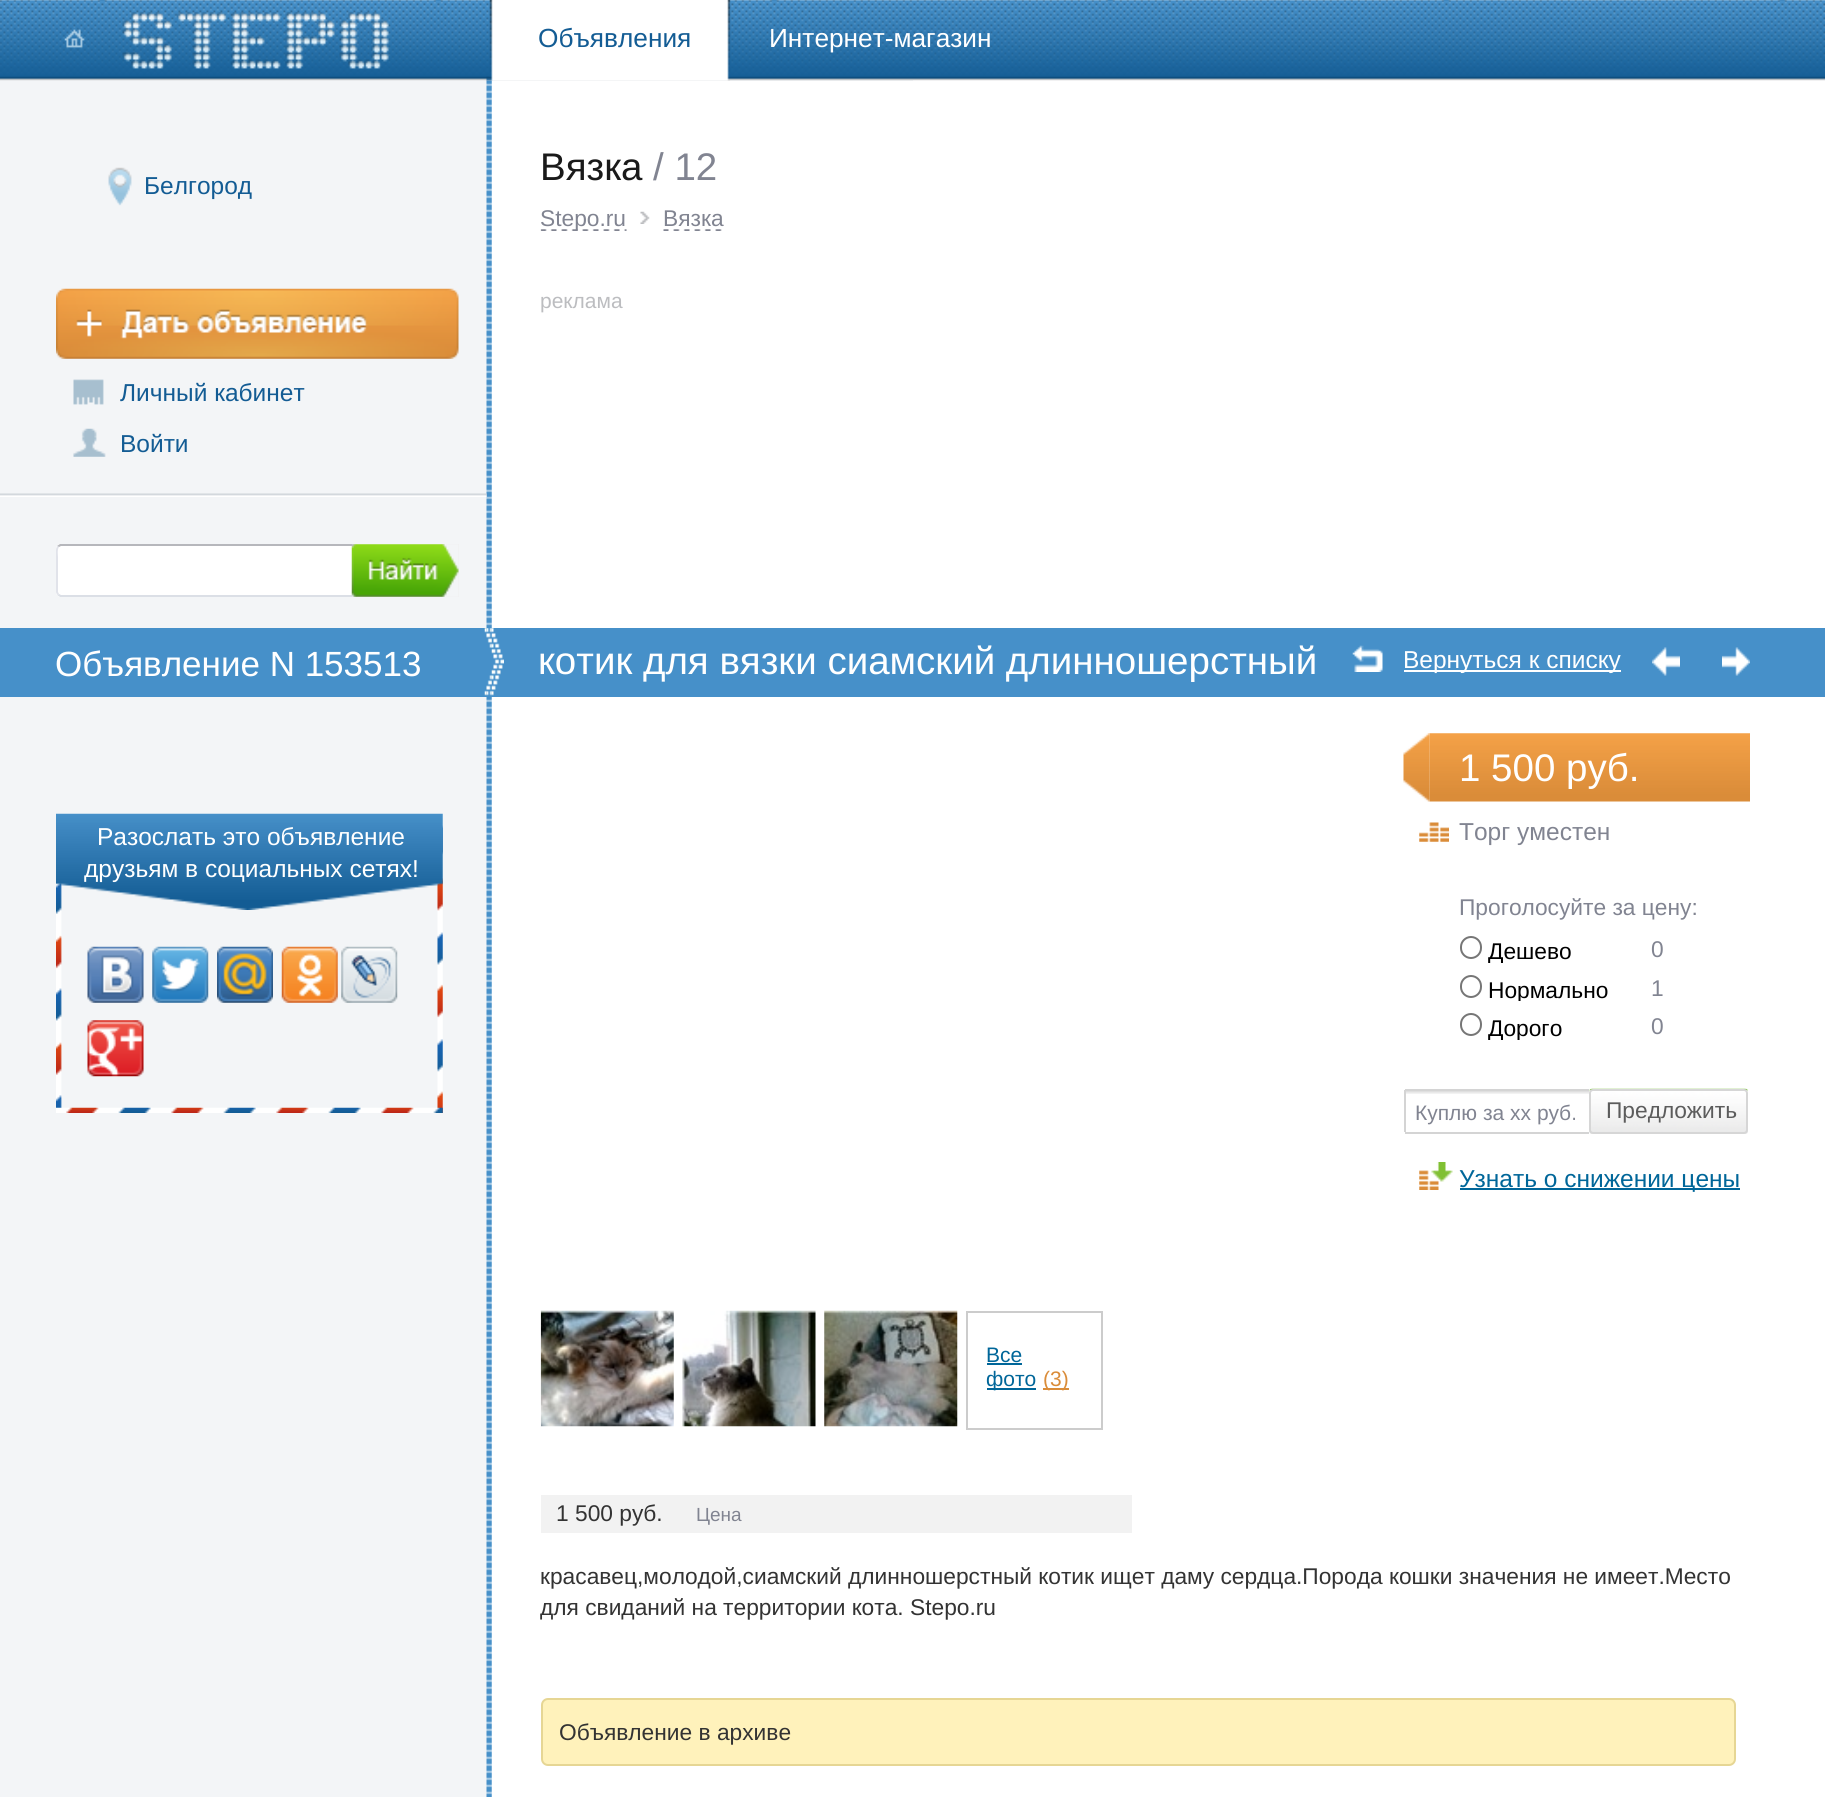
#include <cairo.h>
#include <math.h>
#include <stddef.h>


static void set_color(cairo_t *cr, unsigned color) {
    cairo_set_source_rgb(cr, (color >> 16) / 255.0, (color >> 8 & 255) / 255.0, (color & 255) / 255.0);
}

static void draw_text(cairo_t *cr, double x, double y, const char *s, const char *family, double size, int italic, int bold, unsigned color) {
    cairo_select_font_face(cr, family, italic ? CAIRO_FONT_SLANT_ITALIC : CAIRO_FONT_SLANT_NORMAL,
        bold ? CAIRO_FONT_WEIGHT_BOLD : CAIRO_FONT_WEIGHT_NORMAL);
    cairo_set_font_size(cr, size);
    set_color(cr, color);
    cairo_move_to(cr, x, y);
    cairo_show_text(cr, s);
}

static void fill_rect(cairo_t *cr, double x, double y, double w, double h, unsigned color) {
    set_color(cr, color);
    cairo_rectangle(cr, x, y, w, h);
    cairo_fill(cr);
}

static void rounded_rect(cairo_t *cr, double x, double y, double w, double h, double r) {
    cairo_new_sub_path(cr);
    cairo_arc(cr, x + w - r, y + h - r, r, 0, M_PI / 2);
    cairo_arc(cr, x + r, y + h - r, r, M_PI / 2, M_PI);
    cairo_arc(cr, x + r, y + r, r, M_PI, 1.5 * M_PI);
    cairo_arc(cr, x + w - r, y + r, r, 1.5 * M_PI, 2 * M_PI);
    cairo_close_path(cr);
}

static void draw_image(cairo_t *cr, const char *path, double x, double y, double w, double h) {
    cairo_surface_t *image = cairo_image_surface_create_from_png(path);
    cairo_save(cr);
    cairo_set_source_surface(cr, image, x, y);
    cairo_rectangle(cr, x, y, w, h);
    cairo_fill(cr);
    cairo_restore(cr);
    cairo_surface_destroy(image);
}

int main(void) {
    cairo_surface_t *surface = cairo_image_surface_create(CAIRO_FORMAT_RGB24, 1825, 1797);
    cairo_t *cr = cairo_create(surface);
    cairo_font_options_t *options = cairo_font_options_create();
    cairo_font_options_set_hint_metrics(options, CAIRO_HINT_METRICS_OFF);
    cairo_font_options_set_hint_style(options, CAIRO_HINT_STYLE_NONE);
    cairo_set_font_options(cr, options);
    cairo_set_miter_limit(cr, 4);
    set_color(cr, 0xFFFFFF);
    cairo_paint(cr);
    fill_rect(cr, 0, 0, 913, 1797, 0xF3F5F7);
    draw_image(cr, "assets/img1.png", 0, 0, 1825, 81);
    draw_image(cr, "assets/img2.png", 64, 12, 325, 57);
    fill_rect(cr, 491, 81, 422, 1716, 0xFFFFFF);
    draw_image(cr, "assets/img11.png", 486, 80, 6, 548);
    draw_image(cr, "assets/img3.png", 486, 0, 245, 81);
    draw_text(cr, 538, 47, "Объявления", "Liberation Sans", 26.25, 0, 0, 0x135C94);
    draw_text(cr, 769, 47, "Интернет-магазин", "Liberation Sans", 26.25, 0, 0, 0xFFFFFF);
    draw_image(cr, "assets/img4.png", 56, 493, 431, 4);
    draw_image(cr, "assets/img5.png", 108, 167, 24, 39);
    draw_text(cr, 144, 194, "Белгород", "Liberation Sans", 24.5, 0, 0, 0x135C94);
    draw_image(cr, "assets/img6.png", 56, 288, 403, 71);
    draw_image(cr, "assets/img7.png", 73, 379, 31, 26);
    draw_text(cr, 120, 401, "Личный кабинет", "Liberation Sans", 24.5, 0, 0, 0x135C94);
    draw_image(cr, "assets/img8.png", 73, 428, 33, 29);
    draw_text(cr, 120, 452, "Войти", "Liberation Sans", 24.5, 0, 0, 0x135C94);
    draw_image(cr, "assets/img9.png", 0, 493, 56, 4);
    set_color(cr, 0xFFFFFF);
    cairo_new_path(cr);
    cairo_move_to(cr, 61, 544);
    cairo_line_to(cr, 352, 544);
    cairo_line_to(cr, 352, 597);
    cairo_line_to(cr, 61, 597);
    cairo_curve_to(cr, 58, 597, 56, 595, 56, 592);
    cairo_line_to(cr, 56, 549);
    cairo_curve_to(cr, 56, 546, 58, 544, 61, 544);
    cairo_close_path(cr);
    cairo_fill(cr);
    set_color(cr, 0xB6B7BC);
    cairo_new_path(cr);
    cairo_move_to(cr, 61, 546);
    cairo_line_to(cr, 59, 547);
    cairo_line_to(cr, 57, 546);
    cairo_line_to(cr, 60, 544);
    cairo_line_to(cr, 352, 544);
    cairo_line_to(cr, 352, 546);
    cairo_close_path(cr);
    cairo_fill(cr);
    set_color(cr, 0xDBDFE6);
    cairo_new_path(cr);
    cairo_move_to(cr, 352, 597);
    cairo_line_to(cr, 60, 597);
    cairo_line_to(cr, 57, 595);
    cairo_line_to(cr, 59, 594);
    cairo_line_to(cr, 61, 595);
    cairo_line_to(cr, 352, 595);
    cairo_close_path(cr);
    cairo_fill(cr);
    set_color(cr, 0xE1E3EA);
    cairo_new_path(cr);
    cairo_move_to(cr, 56, 550);
    cairo_line_to(cr, 56, 592);
    cairo_curve_to(cr, 56, 593, 57, 594, 57, 595);
    cairo_line_to(cr, 59, 594);
    cairo_line_to(cr, 58, 592);
    cairo_line_to(cr, 58, 557);
    cairo_curve_to(cr, 58, 556, 57, 549, 59, 547);
    cairo_line_to(cr, 57, 546);
    cairo_curve_to(cr, 57, 547, 56, 548, 56, 550);
    cairo_close_path(cr);
    cairo_fill(cr);
    fill_rect(cr, 352, 544, 107, 53, 0xEFEFEF);
    draw_image(cr, "assets/img10.png", 351, 544, 108, 53);
    draw_text(cr, 540, 180, "Вязка", "Liberation Sans", 38.5, 0, 0, 0x1A1A1A);
    draw_text(cr, 653, 180, "/ 12", "Liberation Sans", 38.5, 0, 0, 0x818491);
    draw_image(cr, "assets/img13.png", 540, 229, 87, 2);
    draw_text(cr, 540, 226, "Stepo.ru", "Liberation Sans", 22.75, 0, 0, 0x818491);
    draw_image(cr, "assets/img12.png", 640, 211, 10, 13);
    draw_text(cr, 663, 226, "Вязка", "Liberation Sans", 22.75, 0, 0, 0x818491);
    draw_image(cr, "assets/img14.png", 663, 229, 59, 2);
    draw_text(cr, 540, 308, "реклама", "Liberation Sans", 21, 0, 0, 0xBCBDC0);
    fill_rect(cr, 0, 628, 1825, 69, 0x4690C9);
    draw_image(cr, "assets/img16.png", 486, 628, 6, 68);
    draw_image(cr, "assets/img15.png", 484, 628, 3, 68);
    draw_text(cr, 55, 676, "Объявление N 153513", "Liberation Sans", 35, 0, 0, 0xFFFFFF);
    draw_image(cr, "assets/img17.png", 491, 628, 13, 68);
    draw_text(cr, 538, 674, "котик для вязки сиамский длинношерстный", "Liberation Sans", 38.5, 0, 0, 0xFFFFFF);
    draw_image(cr, "assets/img18.png", 1352, 645, 31, 27);
    fill_rect(cr, 1404, 670, 217, 2, 0xFFFFFF);
    draw_text(cr, 1403, 668, "Вернуться к списку", "Liberation Sans", 24.5, 0, 0, 0xFFFFFF);
    draw_image(cr, "assets/img19.png", 1652, 647, 28, 29);
    draw_image(cr, "assets/img20.png", 1722, 647, 28, 29);
    draw_image(cr, "assets/img21.png", 56, 814, 387, 299);
    draw_image(cr, "assets/img22.png", 56, 813, 387, 97);
    draw_text(cr, 97, 845, "Разослать это объявление", "Liberation Sans", 24.5, 0, 0, 0xFFFFFF);
    draw_text(cr, 84, 877, "друзьям в социальных сетях!", "Liberation Sans", 24.5, 0, 0, 0xFFFFFF);
    draw_image(cr, "assets/img23.png", 87, 946, 57, 57);
    draw_image(cr, "assets/img24.png", 152, 946, 57, 57);
    draw_image(cr, "assets/img25.png", 217, 946, 56, 57);
    draw_image(cr, "assets/img26.png", 281, 946, 57, 57);
    draw_image(cr, "assets/img27.png", 341, 946, 57, 57);
    draw_image(cr, "assets/img28.png", 87, 1020, 57, 57);
    draw_image(cr, "assets/img29.png", 56, 1107, 387, 6);
    draw_image(cr, "assets/img30.png", 486, 697, 6, 1100);
    draw_image(cr, "assets/img31.png", 1403, 733, 27, 69);
    draw_image(cr, "assets/img32.png", 1429, 733, 321, 69);
    draw_text(cr, 1459, 781, "1 500 руб.", "Liberation Sans", 38.5, 0, 0, 0xFFFFFF);
    draw_image(cr, "assets/img33.png", 1419, 822, 30, 20);
    draw_text(cr, 1459, 840, "Торг уместен", "Liberation Sans", 24.5, 0, 0, 0x818491);
    draw_text(cr, 1459, 915, "Проголосуйте за цену:", "Liberation Sans", 22.75, 0, 0, 0x818491);
    rounded_rect(cr, 1461, 937, 20, 21, 10);
    set_color(cr, 0x767676);
    cairo_stroke(cr);
    cairo_save(cr);
    cairo_rectangle(cr, 1460, 936, 192, 27);
    cairo_clip(cr);
    draw_text(cr, 1488, 959, "Дешево", "Liberation Sans", 22.75, 0, 0, 0x000000);
    cairo_restore(cr);
    draw_text(cr, 1651, 957, "0", "Liberation Sans", 22.75, 0, 0, 0x818491);
    rounded_rect(cr, 1461, 976, 20, 21, 10);
    set_color(cr, 0x767676);
    cairo_stroke(cr);
    cairo_save(cr);
    cairo_rectangle(cr, 1460, 975, 192, 26);
    cairo_clip(cr);
    draw_text(cr, 1488, 998, "Нормально", "Liberation Sans", 22.75, 0, 0, 0x000000);
    cairo_restore(cr);
    draw_text(cr, 1651, 996, "1", "Liberation Sans", 22.75, 0, 0, 0x818491);
    rounded_rect(cr, 1461, 1014, 20, 21, 10);
    set_color(cr, 0x767676);
    cairo_stroke(cr);
    cairo_save(cr);
    cairo_rectangle(cr, 1460, 1013, 192, 27);
    cairo_clip(cr);
    draw_text(cr, 1488, 1036, "Дорого", "Liberation Sans", 22.75, 0, 0, 0x000000);
    cairo_restore(cr);
    draw_text(cr, 1651, 1034, "0", "Liberation Sans", 22.75, 0, 0, 0x818491);
    draw_image(cr, "assets/img34.png", 1406, 1091, 183, 3);
    fill_rect(cr, 1405, 1089, 184, 2, 0xD4D4D4);
    fill_rect(cr, 1405, 1132, 184, 2, 0xD4D4D4);
    fill_rect(cr, 1404, 1090, 2, 42, 0xD4D4D4);
    draw_text(cr, 1415, 1120, "Куплю за хх руб.", "Liberation Sans", 21, 0, 0, 0x818491);
    draw_image(cr, "assets/img35.png", 1589, 1088, 159, 46);
    rounded_rect(cr, 1590, 1090, 157, 43, 3);
    set_color(cr, 0xD6D6D6);
    cairo_stroke(cr);
    draw_text(cr, 1606, 1118, "Предложить", "Liberation Sans", 22.75, 0, 0, 0x5C5C5C);
    draw_image(cr, "assets/img36.png", 1419, 1162, 34, 28);
    fill_rect(cr, 1460, 1188, 280, 2, 0x006699);
    draw_text(cr, 1459, 1187, "Узнать о снижении цены", "Liberation Sans", 24.5, 0, 0, 0x006699);
    draw_image(cr, "assets/img37.png", 540, 1310, 134, 117);
    draw_image(cr, "assets/img38.png", 682, 1310, 134, 117);
    draw_image(cr, "assets/img39.png", 824, 1310, 134, 117);
    cairo_rectangle(cr, 967, 1312, 135, 117);
    set_color(cr, 0xCCCCCC);
    cairo_stroke(cr);
    draw_text(cr, 986, 1362, "Все", "Liberation Sans", 21, 0, 0, 0x006699);
    fill_rect(cr, 987, 1363, 35, 2, 0x006699);
    fill_rect(cr, 987, 1388, 49, 2, 0x006699);
    draw_text(cr, 986, 1386, "фото", "Liberation Sans", 21, 0, 0, 0x006699);
    fill_rect(cr, 1043, 1388, 26, 2, 0xDA8C39);
    draw_text(cr, 1043, 1386, "(3)", "Liberation Sans", 21, 0, 0, 0xDA8C39);
    fill_rect(cr, 541, 1495, 591, 38, 0xF2F2F2);
    draw_text(cr, 556, 1521, "1 500 руб.", "Liberation Sans", 22.75, 0, 0, 0x333333);
    draw_text(cr, 696, 1521, "Цена", "Liberation Sans", 19, 0, 0, 0x818491);
    draw_text(cr, 540, 1584, "красавец,молодой,сиамский длинношерстный котик ищет даму сердца.Порода кошки значения не имеет.Место", "Liberation Sans", 22.75, 0, 0, 0x333333);
    draw_text(cr, 540, 1615, "для свиданий на территории кота. Stepo.ru", "Liberation Sans", 22.75, 0, 0, 0x333333);
    set_color(cr, 0xFFF2BB);
    rounded_rect(cr, 542, 1699, 1193, 66, 6);
    cairo_fill_preserve(cr);
    set_color(cr, 0xE6D694);
    cairo_stroke(cr);
    draw_text(cr, 559, 1740, "Объявление в архиве", "Liberation Sans", 22.75, 0, 0, 0x333333);
    cairo_surface_write_to_png(surface, "output.png");
    cairo_font_options_destroy(options);
    cairo_destroy(cr);
    cairo_surface_destroy(surface);
    return 0;
}
